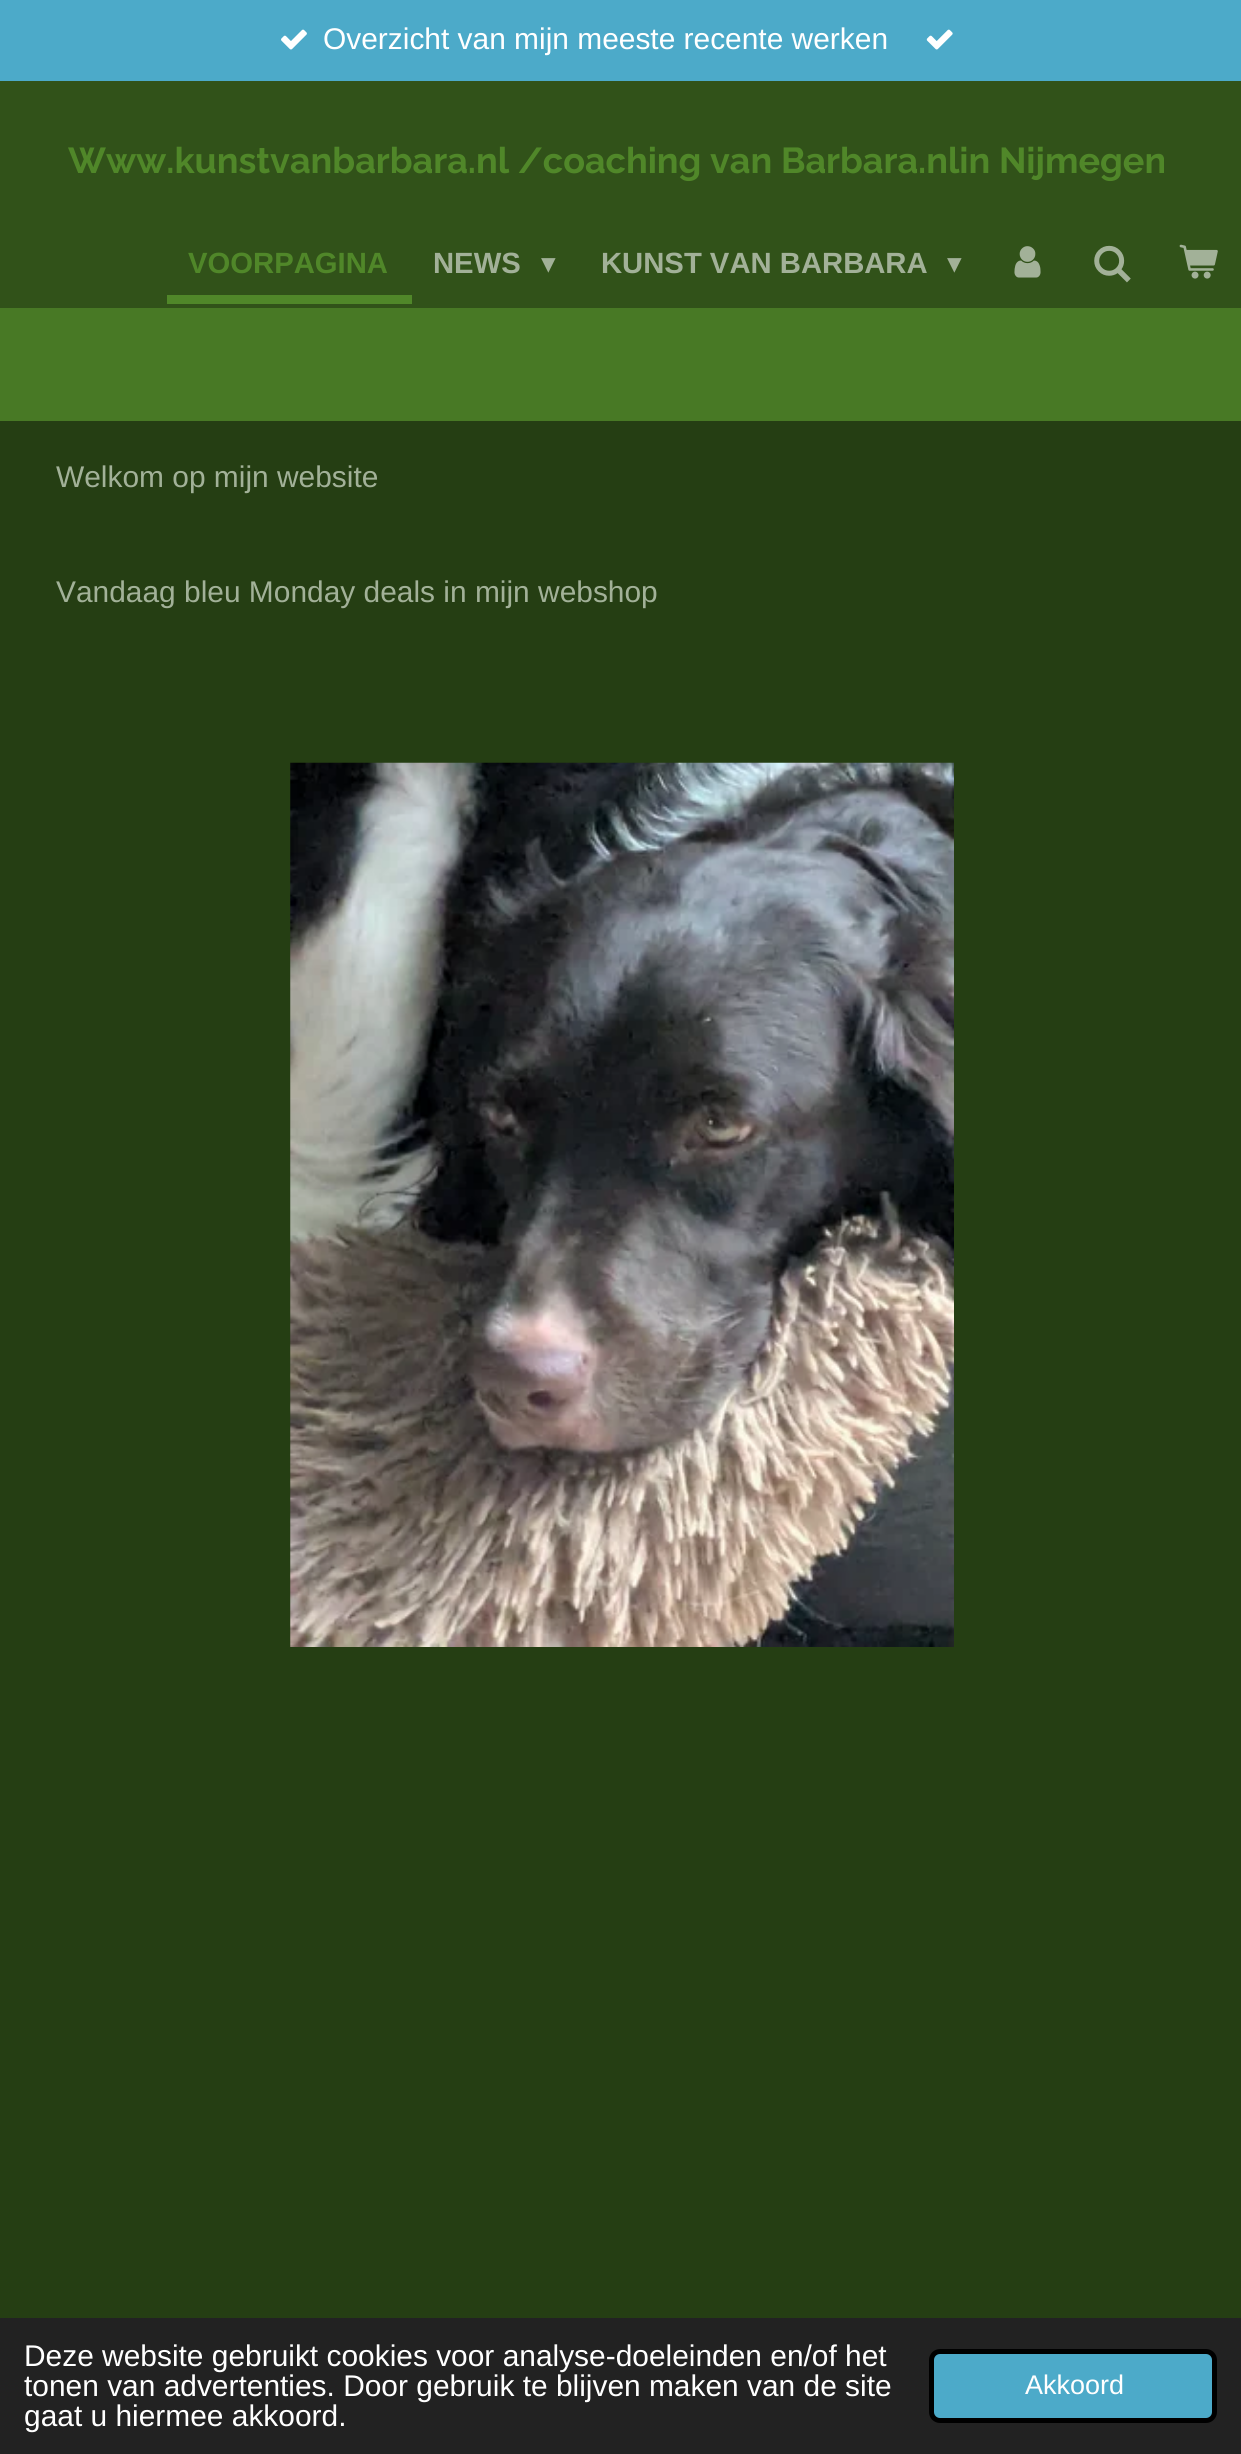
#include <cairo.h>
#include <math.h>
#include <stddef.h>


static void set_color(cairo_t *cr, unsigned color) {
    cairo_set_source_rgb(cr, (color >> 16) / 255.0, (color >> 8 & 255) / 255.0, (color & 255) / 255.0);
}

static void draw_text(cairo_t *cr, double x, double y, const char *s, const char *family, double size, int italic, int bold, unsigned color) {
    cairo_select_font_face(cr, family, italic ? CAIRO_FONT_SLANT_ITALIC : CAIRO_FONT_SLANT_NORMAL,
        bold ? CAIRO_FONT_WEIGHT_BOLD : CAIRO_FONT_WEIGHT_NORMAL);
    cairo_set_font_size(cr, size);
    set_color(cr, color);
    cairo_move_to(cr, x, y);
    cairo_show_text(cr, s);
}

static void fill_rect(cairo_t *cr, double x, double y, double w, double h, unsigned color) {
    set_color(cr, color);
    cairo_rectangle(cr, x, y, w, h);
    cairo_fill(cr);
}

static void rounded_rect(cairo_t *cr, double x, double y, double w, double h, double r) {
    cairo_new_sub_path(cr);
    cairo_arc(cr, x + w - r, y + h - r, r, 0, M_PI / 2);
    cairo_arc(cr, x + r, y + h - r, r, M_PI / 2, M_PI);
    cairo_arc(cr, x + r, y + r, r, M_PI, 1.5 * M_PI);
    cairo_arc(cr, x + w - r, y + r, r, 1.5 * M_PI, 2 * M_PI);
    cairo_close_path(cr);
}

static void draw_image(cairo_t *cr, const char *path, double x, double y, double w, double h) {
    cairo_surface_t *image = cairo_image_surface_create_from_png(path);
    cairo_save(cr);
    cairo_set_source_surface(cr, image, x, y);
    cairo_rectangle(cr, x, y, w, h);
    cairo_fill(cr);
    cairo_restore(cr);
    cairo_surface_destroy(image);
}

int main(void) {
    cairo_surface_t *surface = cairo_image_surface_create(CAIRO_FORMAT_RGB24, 1241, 2454);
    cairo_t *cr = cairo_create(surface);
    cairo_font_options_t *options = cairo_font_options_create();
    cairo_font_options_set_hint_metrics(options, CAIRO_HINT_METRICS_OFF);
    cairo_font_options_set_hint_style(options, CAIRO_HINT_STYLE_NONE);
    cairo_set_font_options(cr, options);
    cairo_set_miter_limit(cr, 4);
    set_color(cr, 0x315219);
    cairo_paint(cr);
    fill_rect(cr, 0, 0, 1241, 81, 0x4CAAC9);
    draw_image(cr, "assets/img1.png", 281, 29, 26, 21);
    draw_text(cr, 323, 49, "Overzicht van mijn meeste recente werken", "Liberation Sans", 29.9, 0, 0, 0xFFFFFF);
    draw_image(cr, "assets/img2.png", 926, 29, 27, 21);
    draw_text(cr, 68, 173, "Www.kunstvanbarbara.nl /coaching van Barbara.nlin Nijmegen", "Raleway", 36, 0, 1, 0x508729);
    fill_rect(cr, 167, 295, 245, 9, 0x508729);
    draw_text(cr, 188, 273, "VOORPAGINA", "Liberation Sans", 29.25, 0, 1, 0x508729);
    draw_text(cr, 433, 273, "NEWS", "Liberation Sans", 29.25, 0, 1, 0xA2B198);
    draw_text(cr, 541, 273, "▾", "DejaVu Sans", 29.25, 0, 0, 0xA2B198);
    draw_text(cr, 601, 273, "KUNST VAN BARBARA", "Liberation Sans", 29.25, 0, 1, 0xA2B198);
    draw_text(cr, 947, 273, "▾", "DejaVu Sans", 29.25, 0, 0, 0xA2B198);
    draw_image(cr, "assets/img3.png", 1014, 246, 27, 32);
    draw_image(cr, "assets/img4.png", 1094, 245, 37, 38);
    draw_image(cr, "assets/img5.png", 1179, 244, 39, 35);
    fill_rect(cr, 0, 308, 1241, 113, 0x487925);
    fill_rect(cr, 0, 421, 1241, 1897, 0x253E13);
    draw_text(cr, 56, 487, "Welkom op mijn website", "Liberation Sans", 29.9, 0, 0, 0xA2B198);
    draw_text(cr, 56, 602, "Vandaag bleu Monday deals in mijn webshop", "Liberation Sans", 29.9, 0, 0, 0xA2B198);
    draw_image(cr, "assets/img6.png", 290, 762, 664, 885);
    fill_rect(cr, 0, 2318, 1241, 136, 0x222222);
    draw_text(cr, 24, 2366, "Deze website gebruikt cookies voor analyse-doeleinden en/of het", "Liberation Sans", 29.9, 0, 0, 0xFFFFFF);
    draw_text(cr, 24, 2396, "tonen van advertenties. Door gebruik te blijven maken van de site", "Liberation Sans", 29.9, 0, 0, 0xFFFFFF);
    draw_text(cr, 24, 2426, "gaat u hiermee akkoord.", "Liberation Sans", 29.9, 0, 0, 0xFFFFFF);
    set_color(cr, 0x4CAAC9);
    rounded_rect(cr, 931.5, 2351.5, 283, 69, 8.5);
    cairo_fill_preserve(cr);
    set_color(cr, 0x000000);
    cairo_set_line_width(cr, 5);
    cairo_stroke(cr);
    draw_text(cr, 1025, 2394, "Akkoord", "Liberation Sans", 27, 0, 0, 0xFFFFFF);
    cairo_surface_write_to_png(surface, "output.png");
    cairo_font_options_destroy(options);
    cairo_destroy(cr);
    cairo_surface_destroy(surface);
    return 0;
}
